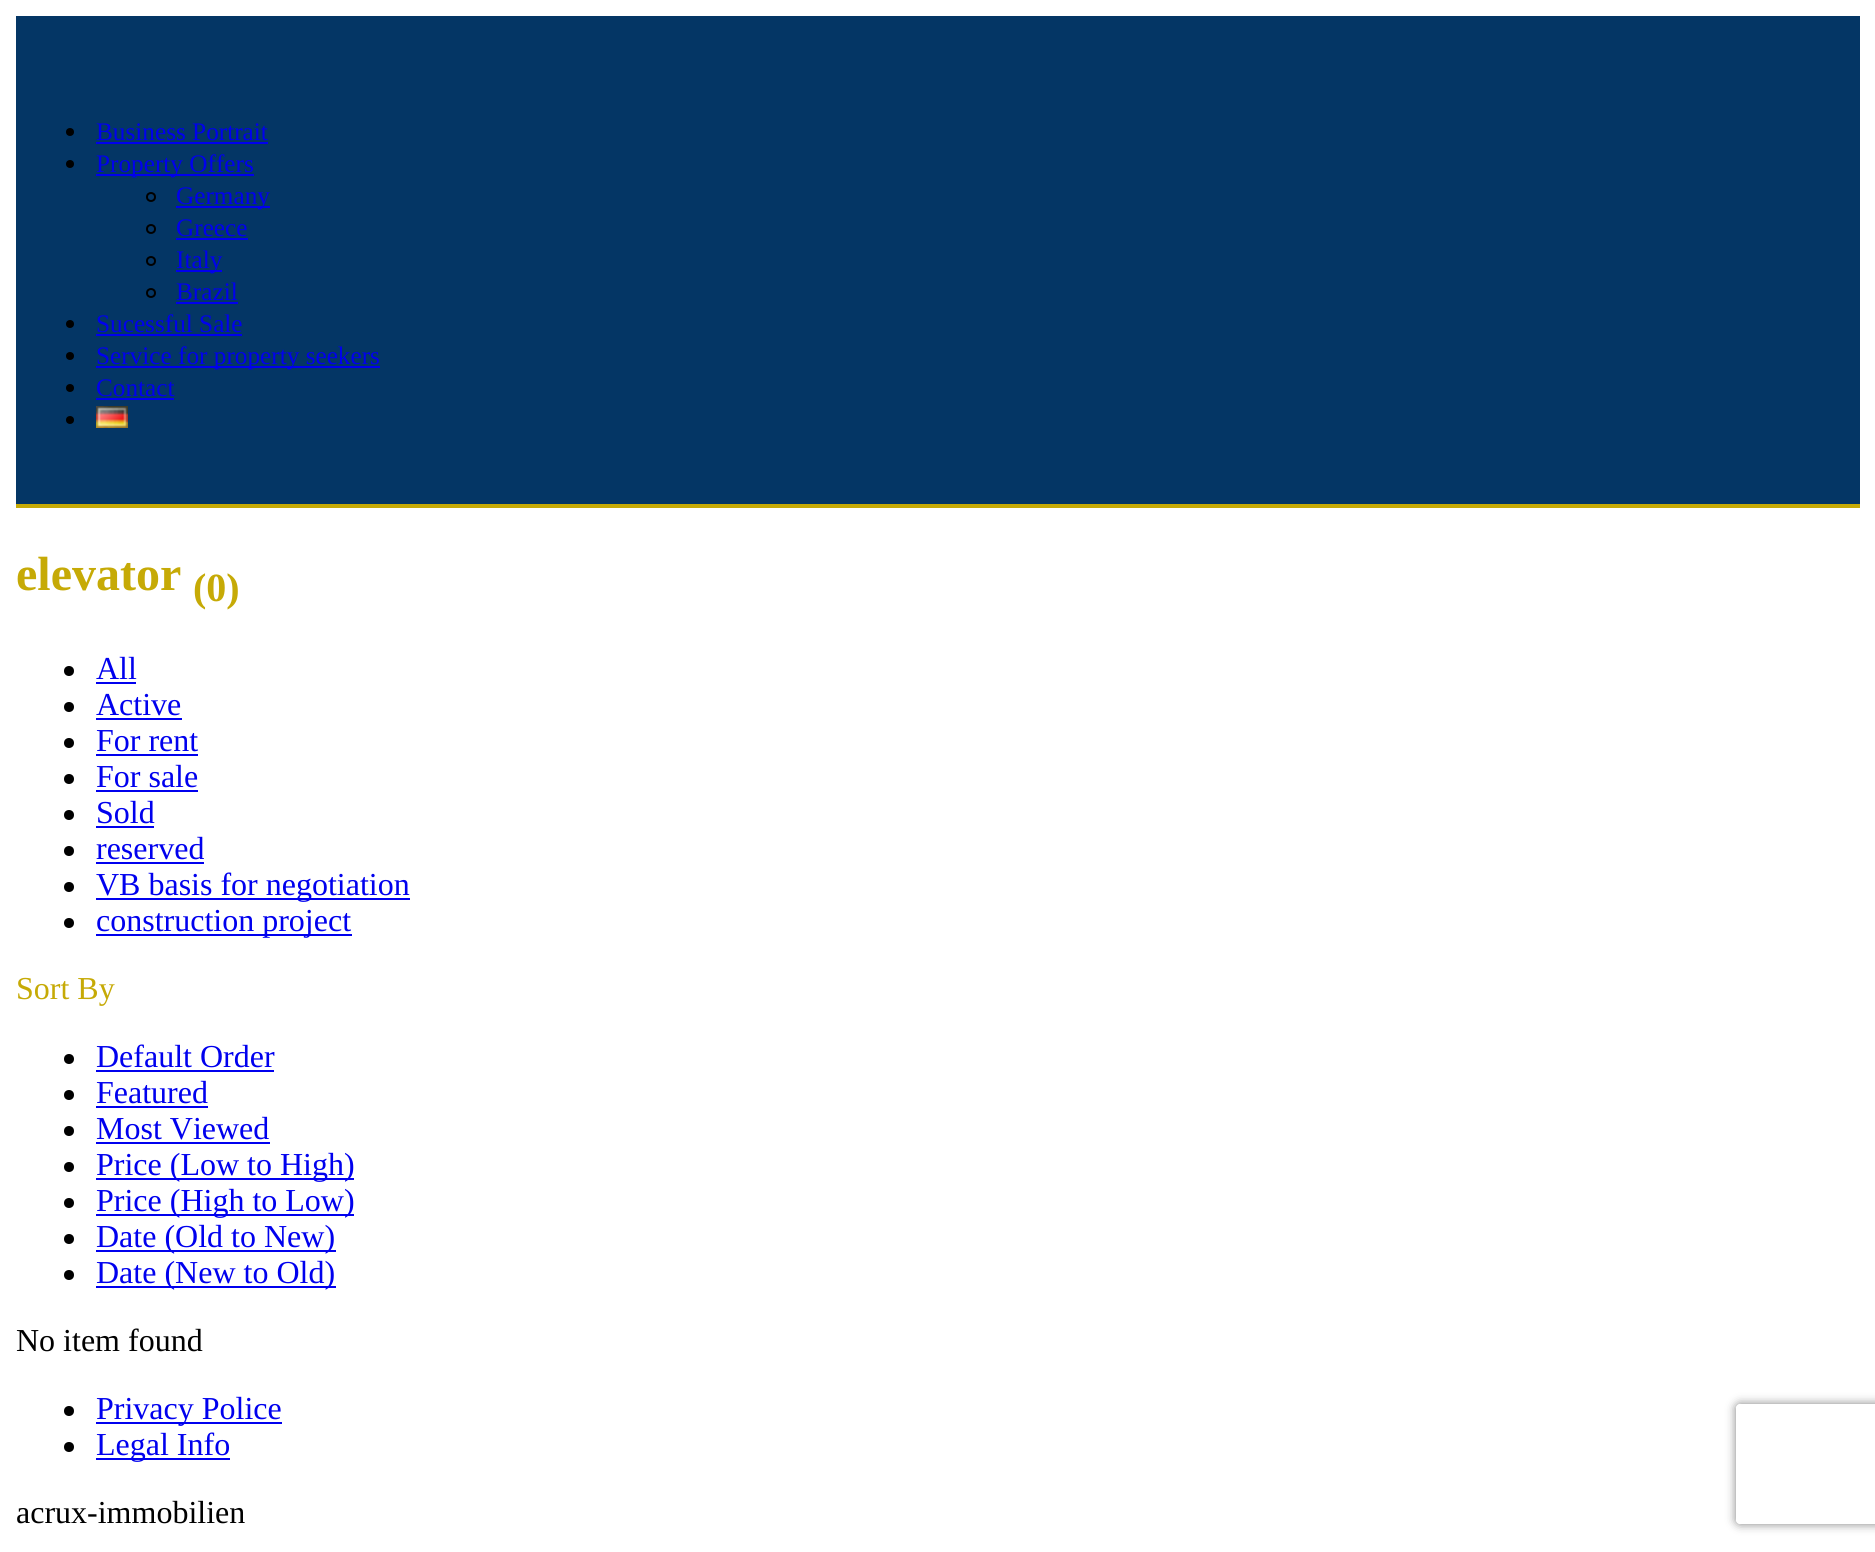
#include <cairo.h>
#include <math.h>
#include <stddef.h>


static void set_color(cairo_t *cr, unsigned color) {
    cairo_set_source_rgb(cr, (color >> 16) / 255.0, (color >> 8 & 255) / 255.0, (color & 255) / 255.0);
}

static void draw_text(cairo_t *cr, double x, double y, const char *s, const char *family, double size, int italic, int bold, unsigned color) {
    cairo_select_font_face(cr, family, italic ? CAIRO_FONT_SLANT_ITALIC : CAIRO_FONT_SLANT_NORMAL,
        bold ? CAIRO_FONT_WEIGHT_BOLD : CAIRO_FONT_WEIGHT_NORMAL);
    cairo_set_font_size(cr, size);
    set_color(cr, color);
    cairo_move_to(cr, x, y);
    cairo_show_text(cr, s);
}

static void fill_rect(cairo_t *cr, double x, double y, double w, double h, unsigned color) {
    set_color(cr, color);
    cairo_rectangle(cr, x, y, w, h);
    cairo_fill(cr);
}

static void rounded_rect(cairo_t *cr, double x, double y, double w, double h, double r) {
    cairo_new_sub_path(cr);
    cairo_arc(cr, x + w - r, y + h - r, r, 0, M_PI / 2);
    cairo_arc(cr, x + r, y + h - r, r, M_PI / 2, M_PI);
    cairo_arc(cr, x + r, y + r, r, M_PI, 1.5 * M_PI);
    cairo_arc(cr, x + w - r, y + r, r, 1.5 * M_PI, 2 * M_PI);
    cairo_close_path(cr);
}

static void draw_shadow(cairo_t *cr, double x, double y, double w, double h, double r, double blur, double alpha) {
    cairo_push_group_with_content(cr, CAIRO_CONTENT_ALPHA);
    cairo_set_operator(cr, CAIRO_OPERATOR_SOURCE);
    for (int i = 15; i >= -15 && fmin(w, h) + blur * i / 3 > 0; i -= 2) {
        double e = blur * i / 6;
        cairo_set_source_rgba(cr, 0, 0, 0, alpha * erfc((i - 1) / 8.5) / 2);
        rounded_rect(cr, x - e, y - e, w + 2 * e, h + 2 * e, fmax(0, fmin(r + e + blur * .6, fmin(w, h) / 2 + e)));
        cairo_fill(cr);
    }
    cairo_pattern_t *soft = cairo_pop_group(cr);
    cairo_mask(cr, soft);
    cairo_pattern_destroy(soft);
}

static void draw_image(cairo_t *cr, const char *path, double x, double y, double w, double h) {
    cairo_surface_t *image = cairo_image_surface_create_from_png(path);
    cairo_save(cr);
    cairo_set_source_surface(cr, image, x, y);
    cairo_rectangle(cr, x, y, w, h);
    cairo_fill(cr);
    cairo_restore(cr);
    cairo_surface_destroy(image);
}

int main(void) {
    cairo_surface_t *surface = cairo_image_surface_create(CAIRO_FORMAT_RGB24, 1875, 1552);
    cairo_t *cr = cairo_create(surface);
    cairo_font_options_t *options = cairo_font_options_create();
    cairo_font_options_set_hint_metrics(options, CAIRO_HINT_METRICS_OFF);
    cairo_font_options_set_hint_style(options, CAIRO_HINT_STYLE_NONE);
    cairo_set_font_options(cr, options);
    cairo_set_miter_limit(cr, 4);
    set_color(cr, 0xFFFFFF);
    cairo_paint(cr);
    fill_rect(cr, 16, 504, 1844, 4, 0xC6AA06);
    fill_rect(cr, 16, 16, 1844, 488, 0x043665);
    set_color(cr, 0x000000);
    cairo_arc(cr, 70, 132, 4, 0, 2 * M_PI);
    cairo_fill(cr);
    draw_text(cr, 96, 140, "Business Portrait", "Liberation Serif", 25.25, 0, 0, 0x0000EE);
    fill_rect(cr, 96, 142, 172, 2, 0x0000EE);
    set_color(cr, 0x000000);
    cairo_new_path(cr);
    cairo_arc(cr, 70, 164, 4, 0, 2 * M_PI);
    cairo_fill(cr);
    fill_rect(cr, 96, 174, 158, 2, 0x0000EE);
    draw_text(cr, 96, 172, "Property Offers", "Liberation Serif", 25.25, 0, 0, 0x0000EE);
    cairo_new_path(cr);
    cairo_arc(cr, 151, 197, 4, 0, 2 * M_PI);
    set_color(cr, 0x000000);
    cairo_stroke(cr);
    fill_rect(cr, 176, 206, 94, 2, 0x0000EE);
    draw_text(cr, 176, 204, "Germany", "Liberation Serif", 25.25, 0, 0, 0x0000EE);
    cairo_new_path(cr);
    cairo_arc(cr, 151, 229, 4, 0, 2 * M_PI);
    set_color(cr, 0x000000);
    cairo_stroke(cr);
    draw_text(cr, 176, 236, "Greece", "Liberation Serif", 25.25, 0, 0, 0x0000EE);
    fill_rect(cr, 176, 238, 72, 2, 0x0000EE);
    cairo_new_path(cr);
    cairo_arc(cr, 151, 261, 4, 0, 2 * M_PI);
    set_color(cr, 0x000000);
    cairo_stroke(cr);
    fill_rect(cr, 176, 270, 46, 2, 0x0000EE);
    draw_text(cr, 176, 268, "Italy", "Liberation Serif", 25.25, 0, 0, 0x0000EE);
    cairo_new_path(cr);
    cairo_arc(cr, 151, 293, 4, 0, 2 * M_PI);
    set_color(cr, 0x000000);
    cairo_stroke(cr);
    draw_text(cr, 176, 300, "Brazil", "Liberation Serif", 25.25, 0, 0, 0x0000EE);
    fill_rect(cr, 176, 302, 62, 2, 0x0000EE);
    set_color(cr, 0x000000);
    cairo_new_path(cr);
    cairo_arc(cr, 70, 324, 4, 0, 2 * M_PI);
    cairo_fill(cr);
    draw_text(cr, 96, 332, "Sucessful Sale", "Liberation Serif", 25.25, 0, 0, 0x0000EE);
    fill_rect(cr, 96, 334, 146, 2, 0x0000EE);
    set_color(cr, 0x000000);
    cairo_new_path(cr);
    cairo_arc(cr, 70, 356, 4, 0, 2 * M_PI);
    cairo_fill(cr);
    fill_rect(cr, 96, 366, 284, 2, 0x0000EE);
    draw_text(cr, 96, 364, "Service for property seekers", "Liberation Serif", 25.25, 0, 0, 0x0000EE);
    set_color(cr, 0x000000);
    cairo_new_path(cr);
    cairo_arc(cr, 70, 388, 4, 0, 2 * M_PI);
    cairo_fill(cr);
    draw_text(cr, 96, 396, "Contact", "Liberation Serif", 25.25, 0, 0, 0x0000EE);
    fill_rect(cr, 96, 398, 78, 2, 0x0000EE);
    set_color(cr, 0x000000);
    cairo_new_path(cr);
    cairo_arc(cr, 70, 420, 4, 0, 2 * M_PI);
    cairo_fill(cr);
    draw_image(cr, "assets/img1.png", 96, 406, 32, 22);
    draw_text(cr, 16, 590, "elevator", "Liberation Serif", 48, 0, 1, 0xC6AA06);
    draw_text(cr, 193, 601, "(0)", "Liberation Serif", 40, 0, 1, 0xC6AA06);
    set_color(cr, 0x000000);
    cairo_new_path(cr);
    cairo_arc(cr, 69, 671, 5, 0, 2 * M_PI);
    cairo_fill(cr);
    draw_text(cr, 96, 679, "All", "Liberation Serif", 32, 0, 0, 0x0000EE);
    fill_rect(cr, 96, 682, 40, 2, 0x0000EE);
    set_color(cr, 0x000000);
    cairo_new_path(cr);
    cairo_arc(cr, 69, 707, 5, 0, 2 * M_PI);
    cairo_fill(cr);
    draw_text(cr, 96, 715, "Active", "Liberation Serif", 32, 0, 0, 0x0000EE);
    fill_rect(cr, 96, 718, 86, 2, 0x0000EE);
    set_color(cr, 0x000000);
    cairo_new_path(cr);
    cairo_arc(cr, 69, 743, 5, 0, 2 * M_PI);
    cairo_fill(cr);
    draw_text(cr, 96, 751, "For rent", "Liberation Serif", 32, 0, 0, 0x0000EE);
    fill_rect(cr, 96, 754, 102, 2, 0x0000EE);
    set_color(cr, 0x000000);
    cairo_new_path(cr);
    cairo_arc(cr, 69, 779, 5, 0, 2 * M_PI);
    cairo_fill(cr);
    draw_text(cr, 96, 787, "For sale", "Liberation Serif", 32, 0, 0, 0x0000EE);
    fill_rect(cr, 96, 790, 102, 2, 0x0000EE);
    set_color(cr, 0x000000);
    cairo_new_path(cr);
    cairo_arc(cr, 69, 815, 5, 0, 2 * M_PI);
    cairo_fill(cr);
    draw_text(cr, 96, 823, "Sold", "Liberation Serif", 32, 0, 0, 0x0000EE);
    fill_rect(cr, 96, 826, 58, 2, 0x0000EE);
    set_color(cr, 0x000000);
    cairo_new_path(cr);
    cairo_arc(cr, 69, 851, 5, 0, 2 * M_PI);
    cairo_fill(cr);
    draw_text(cr, 96, 859, "reserved", "Liberation Serif", 32, 0, 0, 0x0000EE);
    fill_rect(cr, 96, 862, 108, 2, 0x0000EE);
    set_color(cr, 0x000000);
    cairo_new_path(cr);
    cairo_arc(cr, 69, 887, 5, 0, 2 * M_PI);
    cairo_fill(cr);
    fill_rect(cr, 96, 898, 314, 2, 0x0000EE);
    draw_text(cr, 96, 895, "VB basis for negotiation", "Liberation Serif", 32, 0, 0, 0x0000EE);
    set_color(cr, 0x000000);
    cairo_new_path(cr);
    cairo_arc(cr, 69, 923, 5, 0, 2 * M_PI);
    cairo_fill(cr);
    fill_rect(cr, 96, 934, 256, 2, 0x0000EE);
    draw_text(cr, 96, 931, "construction project", "Liberation Serif", 32, 0, 0, 0x0000EE);
    draw_text(cr, 16, 999, "Sort By", "Liberation Serif", 32, 0, 0, 0xC6AA06);
    set_color(cr, 0x000000);
    cairo_new_path(cr);
    cairo_arc(cr, 69, 1059, 5, 0, 2 * M_PI);
    cairo_fill(cr);
    draw_text(cr, 96, 1067, "Default Order", "Liberation Serif", 32, 0, 0, 0x0000EE);
    fill_rect(cr, 96, 1070, 178, 2, 0x0000EE);
    set_color(cr, 0x000000);
    cairo_new_path(cr);
    cairo_arc(cr, 69, 1095, 5, 0, 2 * M_PI);
    cairo_fill(cr);
    draw_text(cr, 96, 1103, "Featured", "Liberation Serif", 32, 0, 0, 0x0000EE);
    fill_rect(cr, 96, 1106, 112, 2, 0x0000EE);
    set_color(cr, 0x000000);
    cairo_new_path(cr);
    cairo_arc(cr, 69, 1131, 5, 0, 2 * M_PI);
    cairo_fill(cr);
    draw_text(cr, 96, 1139, "Most Viewed", "Liberation Serif", 32, 0, 0, 0x0000EE);
    fill_rect(cr, 96, 1142, 174, 2, 0x0000EE);
    set_color(cr, 0x000000);
    cairo_new_path(cr);
    cairo_arc(cr, 69, 1167, 5, 0, 2 * M_PI);
    cairo_fill(cr);
    fill_rect(cr, 96, 1178, 258, 2, 0x0000EE);
    draw_text(cr, 96, 1175, "Price (Low to High)", "Liberation Serif", 32, 0, 0, 0x0000EE);
    set_color(cr, 0x000000);
    cairo_new_path(cr);
    cairo_arc(cr, 69, 1203, 5, 0, 2 * M_PI);
    cairo_fill(cr);
    fill_rect(cr, 96, 1214, 258, 2, 0x0000EE);
    draw_text(cr, 96, 1211, "Price (High to Low)", "Liberation Serif", 32, 0, 0, 0x0000EE);
    set_color(cr, 0x000000);
    cairo_new_path(cr);
    cairo_arc(cr, 69, 1239, 5, 0, 2 * M_PI);
    cairo_fill(cr);
    fill_rect(cr, 96, 1250, 240, 2, 0x0000EE);
    draw_text(cr, 96, 1247, "Date (Old to New)", "Liberation Serif", 32, 0, 0, 0x0000EE);
    set_color(cr, 0x000000);
    cairo_new_path(cr);
    cairo_arc(cr, 69, 1275, 5, 0, 2 * M_PI);
    cairo_fill(cr);
    fill_rect(cr, 96, 1286, 240, 2, 0x0000EE);
    draw_text(cr, 96, 1283, "Date (New to Old)", "Liberation Serif", 32, 0, 0, 0x0000EE);
    draw_text(cr, 16, 1351, "No item found", "Liberation Serif", 32, 0, 0, 0x000000);
    cairo_new_path(cr);
    cairo_arc(cr, 69, 1411, 5, 0, 2 * M_PI);
    cairo_fill(cr);
    fill_rect(cr, 96, 1422, 186, 2, 0x0000EE);
    draw_text(cr, 96, 1419, "Privacy Police", "Liberation Serif", 32, 0, 0, 0x0000EE);
    set_color(cr, 0x000000);
    cairo_new_path(cr);
    cairo_arc(cr, 69, 1447, 5, 0, 2 * M_PI);
    cairo_fill(cr);
    fill_rect(cr, 96, 1458, 134, 2, 0x0000EE);
    draw_text(cr, 96, 1455, "Legal Info", "Liberation Serif", 32, 0, 0, 0x0000EE);
    draw_text(cr, 16, 1523, "acrux-immobilien", "Liberation Serif", 32, 0, 0, 0x000000);
    cairo_save(cr);
    cairo_set_fill_rule(cr, CAIRO_FILL_RULE_EVEN_ODD);
    cairo_new_path(cr);
    cairo_move_to(cr, 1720, 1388);
    cairo_line_to(cr, 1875, 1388);
    cairo_line_to(cr, 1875, 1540);
    cairo_line_to(cr, 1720, 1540);
    cairo_close_path(cr);
    cairo_move_to(cr, 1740, 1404);
    cairo_line_to(cr, 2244, 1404);
    cairo_curve_to(cr, 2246, 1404, 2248, 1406, 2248, 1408);
    cairo_line_to(cr, 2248, 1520);
    cairo_curve_to(cr, 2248, 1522, 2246, 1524, 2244, 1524);
    cairo_line_to(cr, 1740, 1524);
    cairo_curve_to(cr, 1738, 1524, 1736, 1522, 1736, 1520);
    cairo_line_to(cr, 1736, 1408);
    cairo_curve_to(cr, 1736, 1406, 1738, 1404, 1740, 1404);
    cairo_close_path(cr);
    cairo_clip(cr);
    set_color(cr, 0x808080);
    draw_shadow(cr, 1736, 1404, 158, 120, 4, 5, 1);
    cairo_restore(cr);
    cairo_surface_write_to_png(surface, "output.png");
    cairo_font_options_destroy(options);
    cairo_destroy(cr);
    cairo_surface_destroy(surface);
    return 0;
}
